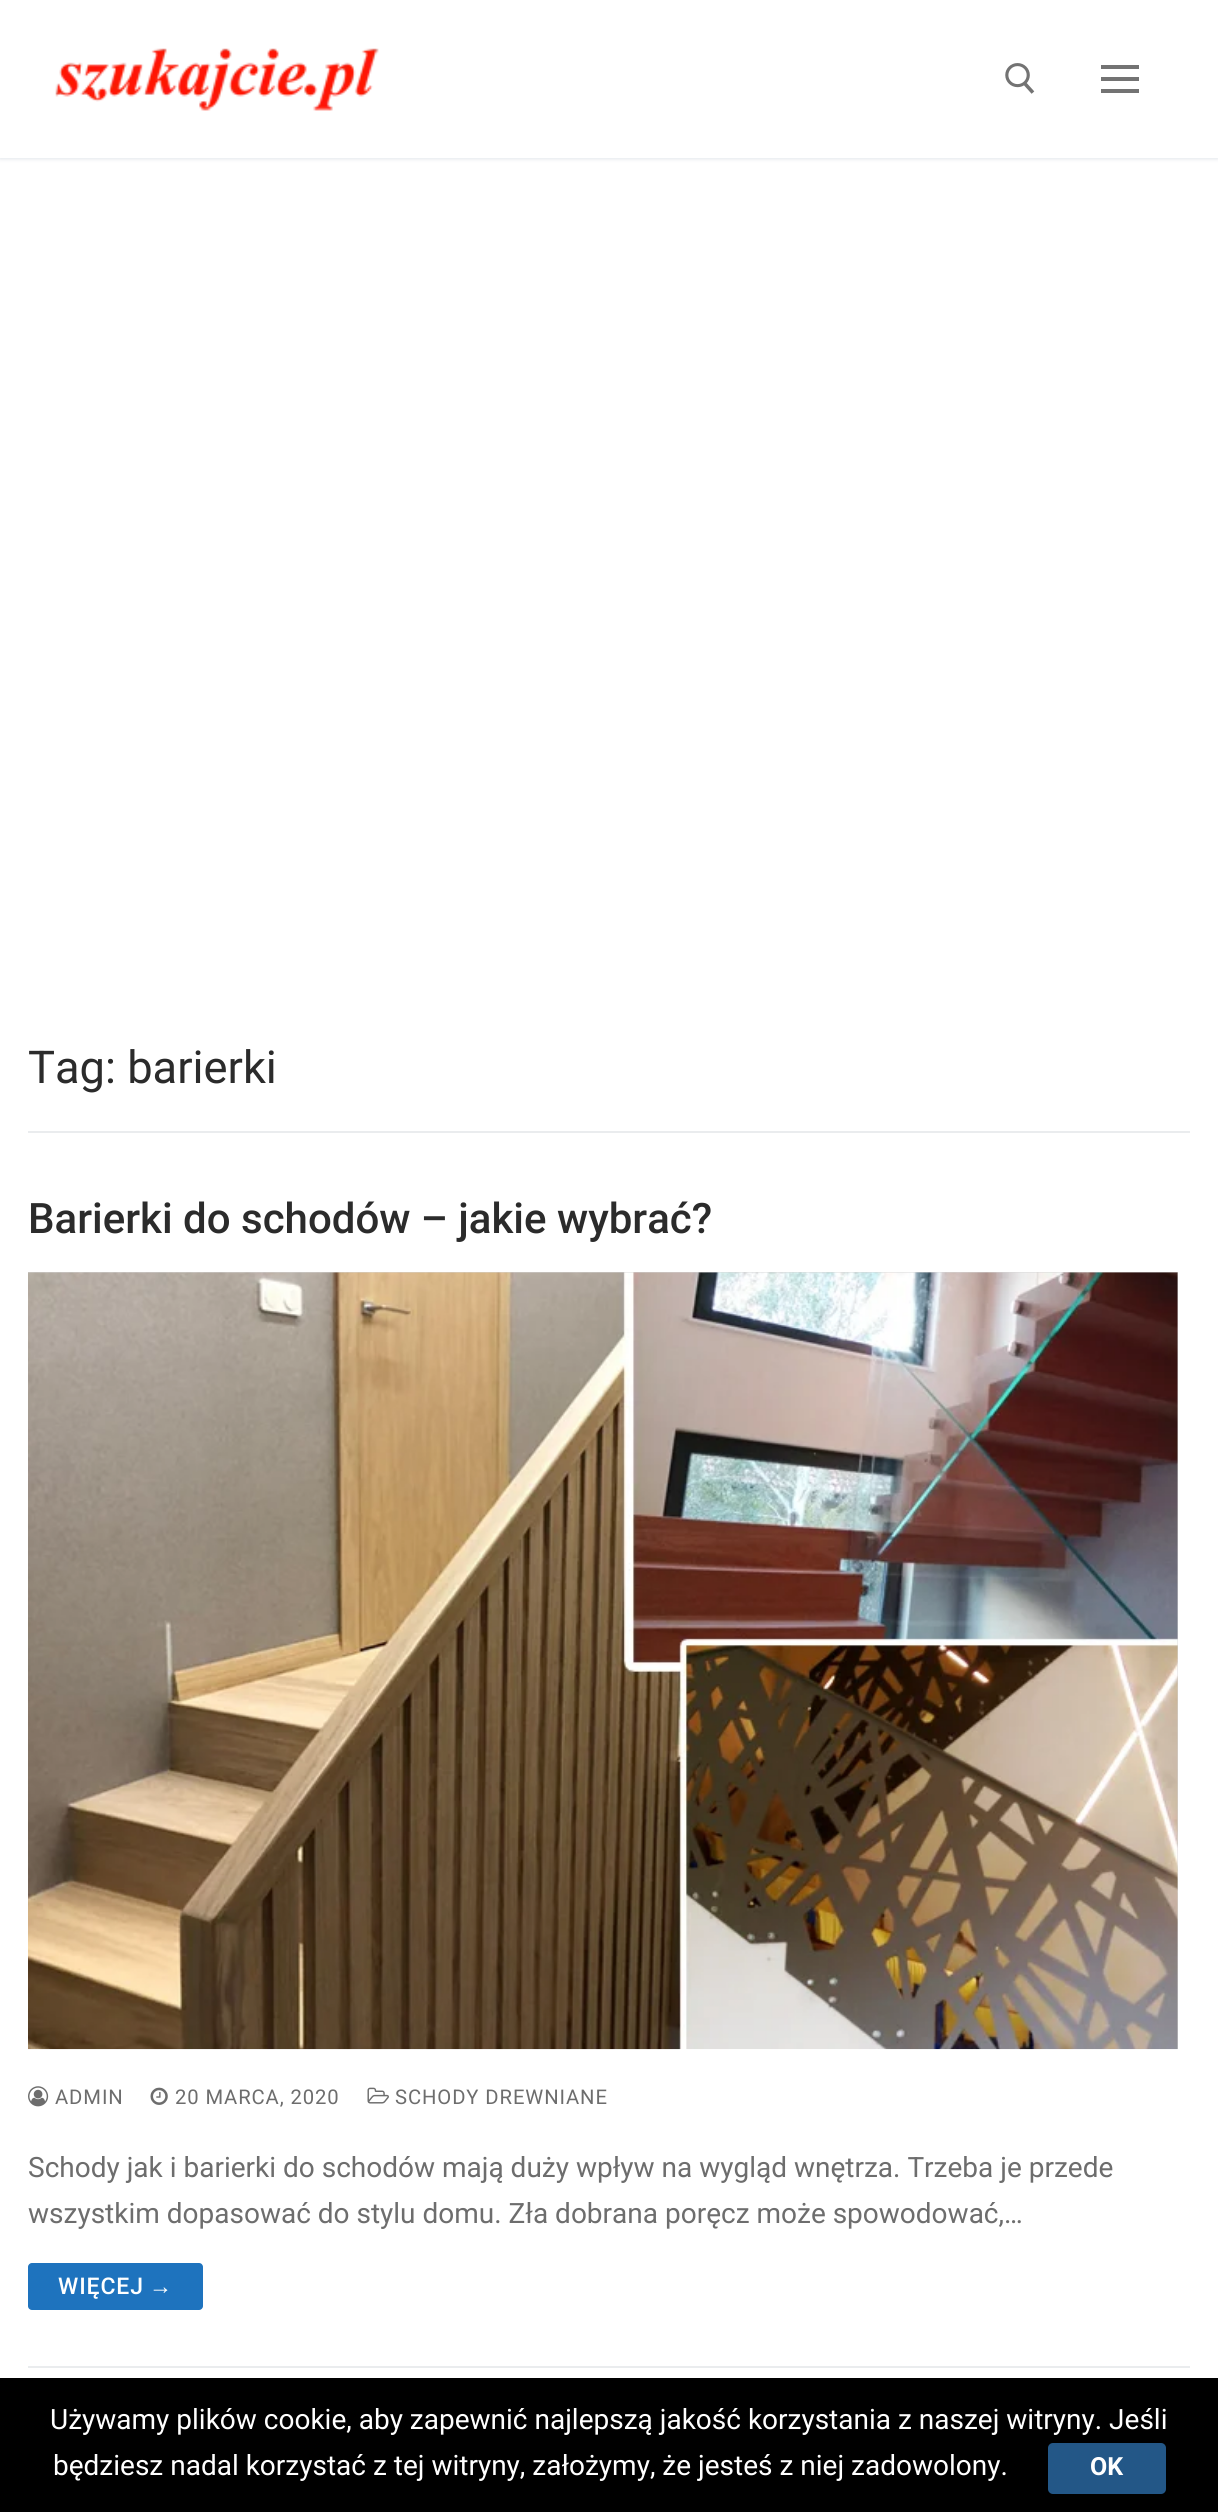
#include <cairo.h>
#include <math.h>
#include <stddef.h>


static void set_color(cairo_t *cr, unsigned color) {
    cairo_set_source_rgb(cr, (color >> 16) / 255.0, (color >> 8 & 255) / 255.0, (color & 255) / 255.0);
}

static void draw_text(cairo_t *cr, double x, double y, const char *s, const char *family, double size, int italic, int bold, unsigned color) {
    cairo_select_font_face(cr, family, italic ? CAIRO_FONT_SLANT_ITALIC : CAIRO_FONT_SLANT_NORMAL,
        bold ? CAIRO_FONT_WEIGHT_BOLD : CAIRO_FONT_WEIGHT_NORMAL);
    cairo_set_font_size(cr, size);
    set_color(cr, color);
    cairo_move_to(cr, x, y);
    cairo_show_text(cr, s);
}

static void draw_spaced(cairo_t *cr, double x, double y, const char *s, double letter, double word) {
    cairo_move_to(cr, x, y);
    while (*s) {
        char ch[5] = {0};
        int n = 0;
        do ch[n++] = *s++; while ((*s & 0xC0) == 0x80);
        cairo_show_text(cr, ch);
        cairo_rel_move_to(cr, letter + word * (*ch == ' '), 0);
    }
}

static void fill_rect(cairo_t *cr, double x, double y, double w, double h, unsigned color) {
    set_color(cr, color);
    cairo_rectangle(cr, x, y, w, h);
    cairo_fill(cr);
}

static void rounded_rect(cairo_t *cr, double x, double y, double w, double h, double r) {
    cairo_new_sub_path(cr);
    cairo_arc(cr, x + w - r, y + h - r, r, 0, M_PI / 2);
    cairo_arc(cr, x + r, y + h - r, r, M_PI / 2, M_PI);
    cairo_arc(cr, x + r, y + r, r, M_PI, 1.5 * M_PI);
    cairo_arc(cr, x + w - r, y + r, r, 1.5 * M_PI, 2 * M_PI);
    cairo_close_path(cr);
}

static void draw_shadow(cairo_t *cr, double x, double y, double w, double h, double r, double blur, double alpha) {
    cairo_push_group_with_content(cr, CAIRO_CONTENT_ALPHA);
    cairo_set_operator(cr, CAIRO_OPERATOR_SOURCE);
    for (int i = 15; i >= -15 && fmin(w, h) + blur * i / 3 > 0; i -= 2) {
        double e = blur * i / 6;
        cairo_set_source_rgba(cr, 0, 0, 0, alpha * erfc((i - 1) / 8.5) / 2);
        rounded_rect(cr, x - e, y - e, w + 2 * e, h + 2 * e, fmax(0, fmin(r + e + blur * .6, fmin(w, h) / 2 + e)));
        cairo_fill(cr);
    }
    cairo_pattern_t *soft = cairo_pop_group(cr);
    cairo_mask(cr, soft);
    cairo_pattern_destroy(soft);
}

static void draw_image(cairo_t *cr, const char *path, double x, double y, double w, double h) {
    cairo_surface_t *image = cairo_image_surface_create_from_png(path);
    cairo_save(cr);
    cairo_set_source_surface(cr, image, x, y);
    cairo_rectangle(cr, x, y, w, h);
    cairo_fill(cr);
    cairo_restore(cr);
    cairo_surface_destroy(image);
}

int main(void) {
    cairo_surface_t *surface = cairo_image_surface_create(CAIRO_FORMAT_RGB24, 1218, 2512);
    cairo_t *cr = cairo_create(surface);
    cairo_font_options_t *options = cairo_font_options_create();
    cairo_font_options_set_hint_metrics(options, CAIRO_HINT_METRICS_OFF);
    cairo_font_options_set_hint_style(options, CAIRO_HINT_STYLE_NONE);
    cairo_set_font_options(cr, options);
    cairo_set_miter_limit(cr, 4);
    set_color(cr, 0xFFFFFF);
    cairo_paint(cr);
    set_color(cr, 0xE1E5EA);
    draw_shadow(cr, 0, 2, 1218, 157, 0, 2, 1);
    fill_rect(cr, 0, 0, 1218, 158, 0xFFFFFF);
    draw_image(cr, "assets/img1.png", 55, 48, 324, 63);
    draw_image(cr, "assets/img2.png", 1005, 63, 30, 31);
    fill_rect(cr, 1101, 77, 38, 4, 0x737373);
    fill_rect(cr, 1101, 65, 38, 4, 0x737373);
    fill_rect(cr, 1101, 89, 38, 4, 0x737373);
    fill_rect(cr, 28, 1131, 1162, 2, 0xEAECEE);
    draw_text(cr, 28, 1083, "Tag: barierki", "Roboto", 45.25, 0, 0, 0x2B2B2B);
    fill_rect(cr, 28, 2366, 1162, 2, 0xEAECEE);
    draw_text(cr, 28, 1233, "Barierki do schodów – jakie wybrać?", "Roboto Medium", 42, 0, 0, 0x2B2B2B);
    fill_rect(cr, 28, 1272, 1150, 777, 0xD5D5D5);
    draw_image(cr, "assets/img3.png", 28, 1272, 1150, 778);
    draw_image(cr, "assets/img4.png", 28, 2086, 21, 21);
    cairo_select_font_face(cr, "Roboto", CAIRO_FONT_SLANT_NORMAL, CAIRO_FONT_WEIGHT_NORMAL);
    cairo_set_font_size(cr, 20.25);
    set_color(cr, 0x6D6D6D);
    draw_spaced(cr, 55, 2104, "ADMIN", 0.9, 0);
    draw_image(cr, "assets/img5.png", 150, 2087, 18, 18);
    draw_spaced(cr, 175, 2104, "20 MARCA, 2020", 0.9, 0);
    draw_image(cr, "assets/img6.png", 367, 2087, 22, 17);
    draw_spaced(cr, 395, 2104, "SCHODY DREWNIANE", 0.9, 0);
    draw_text(cr, 28, 2177, "Schody jak i barierki do schodów mają duży wpływ na wygląd wnętrza. Trzeba je przede", "Roboto", 28, 0, 0, 0x6D6D6D);
    draw_text(cr, 28, 2223, "wszystkim dopasować do stylu domu. Zła dobrana poręcz może spowodować,…", "Roboto", 28, 0, 0, 0x6D6D6D);
    set_color(cr, 0x1E73BE);
    rounded_rect(cr, 28, 2263, 175, 47, 4);
    cairo_fill(cr);
    cairo_select_font_face(cr, "Roboto Medium", CAIRO_FONT_SLANT_NORMAL, CAIRO_FONT_WEIGHT_NORMAL);
    cairo_set_font_size(cr, 23);
    set_color(cr, 0xFFFFFF);
    draw_spaced(cr, 58, 2294, "WIĘCEJ", 0.9, 0);
    cairo_select_font_face(cr, "Liberation Sans", CAIRO_FONT_SLANT_NORMAL, CAIRO_FONT_WEIGHT_NORMAL);
    draw_spaced(cr, 149, 2294, "→", 0.9, 0);
    fill_rect(cr, 0, 2378, 1218, 134, 0x000000);
    draw_text(cr, 50, 2429, "Używamy plików cookie, aby zapewnić najlepszą jakość korzystania z naszej witryny. Jeśli", "Roboto", 28, 0, 0, 0xFFFFFF);
    draw_text(cr, 53, 2475, "będziesz nadal korzystać z tej witryny, założymy, że jesteś z niej zadowolony.", "Roboto", 28, 0, 0, 0xFFFFFF);
    set_color(cr, 0x235787);
    rounded_rect(cr, 1048, 2443, 118, 51, 5);
    cairo_fill(cr);
    draw_text(cr, 1090, 2475, "OK", "Roboto", 25, 0, 1, 0xFFFFFF);
    cairo_surface_write_to_png(surface, "output.png");
    cairo_font_options_destroy(options);
    cairo_destroy(cr);
    cairo_surface_destroy(surface);
    return 0;
}
